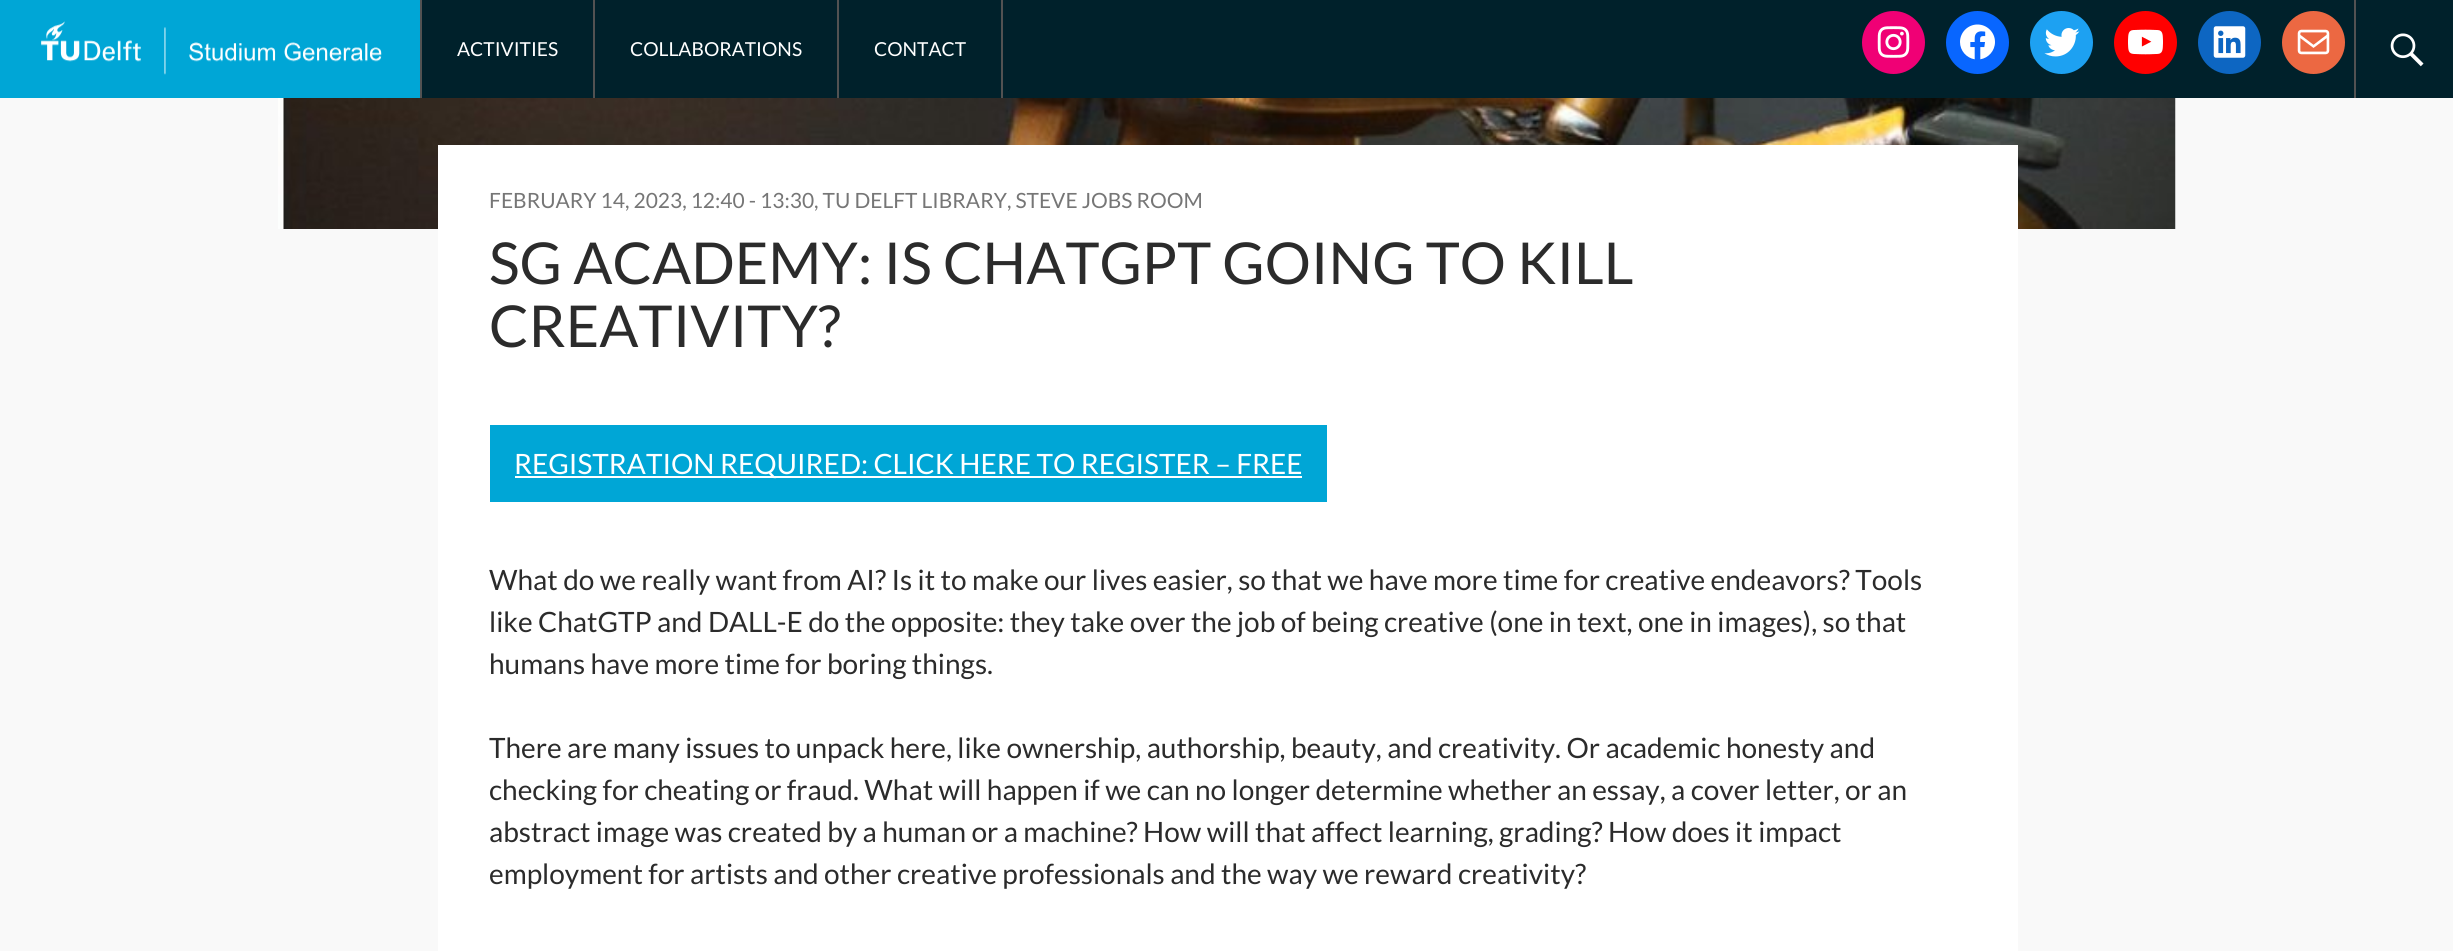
#include <cairo.h>
#include <math.h>
#include <stddef.h>


static void set_color(cairo_t *cr, unsigned color) {
    cairo_set_source_rgb(cr, (color >> 16) / 255.0, (color >> 8 & 255) / 255.0, (color & 255) / 255.0);
}

static void draw_text(cairo_t *cr, double x, double y, const char *s, const char *family, double size, int italic, int bold, unsigned color) {
    cairo_select_font_face(cr, family, italic ? CAIRO_FONT_SLANT_ITALIC : CAIRO_FONT_SLANT_NORMAL,
        bold ? CAIRO_FONT_WEIGHT_BOLD : CAIRO_FONT_WEIGHT_NORMAL);
    cairo_set_font_size(cr, size);
    set_color(cr, color);
    cairo_move_to(cr, x, y);
    cairo_show_text(cr, s);
}

static void fill_rect(cairo_t *cr, double x, double y, double w, double h, unsigned color) {
    set_color(cr, color);
    cairo_rectangle(cr, x, y, w, h);
    cairo_fill(cr);
}

static void draw_image(cairo_t *cr, const char *path, double x, double y, double w, double h) {
    cairo_surface_t *image = cairo_image_surface_create_from_png(path);
    cairo_save(cr);
    cairo_set_source_surface(cr, image, x, y);
    cairo_rectangle(cr, x, y, w, h);
    cairo_fill(cr);
    cairo_restore(cr);
    cairo_surface_destroy(image);
}

int main(void) {
    cairo_surface_t *surface = cairo_image_surface_create(CAIRO_FORMAT_RGB24, 2453, 951);
    cairo_t *cr = cairo_create(surface);
    cairo_font_options_t *options = cairo_font_options_create();
    cairo_font_options_set_hint_metrics(options, CAIRO_HINT_METRICS_OFF);
    cairo_font_options_set_hint_style(options, CAIRO_HINT_STYLE_NONE);
    cairo_set_font_options(cr, options);
    cairo_set_miter_limit(cr, 4);
    set_color(cr, 0xF9F9F9);
    cairo_paint(cr);
    fill_rect(cr, 422, 0, 2031, 98, 0x00212B);
    fill_rect(cr, 0, 0, 420, 98, 0x00A6D6);
    fill_rect(cr, 420, 0, 2, 98, 0x525252);
    draw_image(cr, "assets/img1.png", 41, 21, 341, 54);
    fill_rect(cr, 593, 0, 2, 98, 0x525252);
    draw_text(cr, 457, 56, "ACTIVITIES", "Lato", 19.25, 0, 0, 0xFFFFFF);
    fill_rect(cr, 837, 0, 2, 98, 0x525252);
    draw_text(cr, 630, 56, "COLLABORATIONS", "Lato", 19.25, 0, 0, 0xFFFFFF);
    fill_rect(cr, 1001, 0, 2, 98, 0x525252);
    draw_text(cr, 874, 56, "CONTACT", "Lato", 19.25, 0, 0, 0xFFFFFF);
    set_color(cr, 0xF00075);
    cairo_new_path(cr);
    cairo_arc(cr, 1893.5, 42.5, 31.5, 0, 2 * M_PI);
    cairo_fill(cr);
    draw_image(cr, "assets/img2.png", 1877, 26, 33, 32);
    set_color(cr, 0x0866FF);
    cairo_arc(cr, 1977.5, 42.5, 31.5, 0, 2 * M_PI);
    cairo_fill(cr);
    draw_image(cr, "assets/img3.png", 1960, 24, 35, 36);
    set_color(cr, 0x1DA1F2);
    cairo_arc(cr, 2061.5, 42.5, 31.5, 0, 2 * M_PI);
    cairo_fill(cr);
    draw_image(cr, "assets/img4.png", 2044, 28, 36, 29);
    set_color(cr, 0xFF0000);
    cairo_arc(cr, 2145.5, 42.5, 31.5, 0, 2 * M_PI);
    cairo_fill(cr);
    draw_image(cr, "assets/img5.png", 2128, 29, 35, 26);
    set_color(cr, 0x0D66C2);
    cairo_arc(cr, 2229.5, 42.5, 31.5, 0, 2 * M_PI);
    cairo_fill(cr);
    draw_image(cr, "assets/img6.png", 2213, 26, 33, 32);
    set_color(cr, 0xEC6842);
    cairo_arc(cr, 2313.5, 42.5, 31.5, 0, 2 * M_PI);
    cairo_fill(cr);
    draw_image(cr, "assets/img7.png", 2297, 29, 33, 26);
    fill_rect(cr, 2354, 0, 2, 98, 0x525252);
    draw_image(cr, "assets/img8.png", 2390, 33, 34, 34);
    draw_image(cr, "assets/img9.png", 278, 98, 1898, 131);
    fill_rect(cr, 438, 145, 1580, 392, 0xFFFFFF);
    draw_text(cr, 489, 208, "FEBRUARY 14, 2023, 12:40 - 13:30, TU DELFT LIBRARY, STEVE JOBS ROOM", "Lato", 21, 0, 0, 0x767676);
    draw_text(cr, 489, 284, "SG ACADEMY: IS CHATGPT GOING TO KILL", "Lato", 57.75, 0, 0, 0x2B2B2B);
    draw_text(cr, 489, 347, "CREATIVITY?", "Lato", 57.75, 0, 0, 0x2B2B2B);
    fill_rect(cr, 490, 425, 837, 77, 0x00A6D6);
    fill_rect(cr, 515, 476, 787, 2, 0xFFFFFF);
    draw_text(cr, 514, 474, "REGISTRATION REQUIRED: CLICK HERE TO REGISTER – FREE", "Lato", 28, 0, 0, 0xFFFFFF);
    fill_rect(cr, 438, 537, 1580, 414, 0xFFFFFF);
    draw_text(cr, 489, 590, "What do we really want from AI? Is it to make our lives easier, so that we have more time for creative endeavors? Tools", "Lato", 28, 0, 0, 0x2B2B2B);
    draw_text(cr, 489, 632, "like ChatGTP and DALL-E do the opposite: they take over the job of being creative (one in text, one in images), so that", "Lato", 28, 0, 0, 0x2B2B2B);
    draw_text(cr, 489, 674, "humans have more time for boring things.", "Lato", 28, 0, 0, 0x2B2B2B);
    draw_text(cr, 489, 758, "There are many issues to unpack here, like ownership, authorship, beauty, and creativity. Or academic honesty and", "Lato", 28, 0, 0, 0x2B2B2B);
    draw_text(cr, 489, 800, "checking for cheating or fraud. What will happen if we can no longer determine whether an essay, a cover letter, or an", "Lato", 28, 0, 0, 0x2B2B2B);
    draw_text(cr, 489, 842, "abstract image was created by a human or a machine? How will that affect learning, grading? How does it impact", "Lato", 28, 0, 0, 0x2B2B2B);
    draw_text(cr, 489, 884, "employment for artists and other creative professionals and the way we reward creativity?", "Lato", 28, 0, 0, 0x2B2B2B);
    cairo_surface_write_to_png(surface, "output.png");
    cairo_font_options_destroy(options);
    cairo_destroy(cr);
    cairo_surface_destroy(surface);
    return 0;
}
